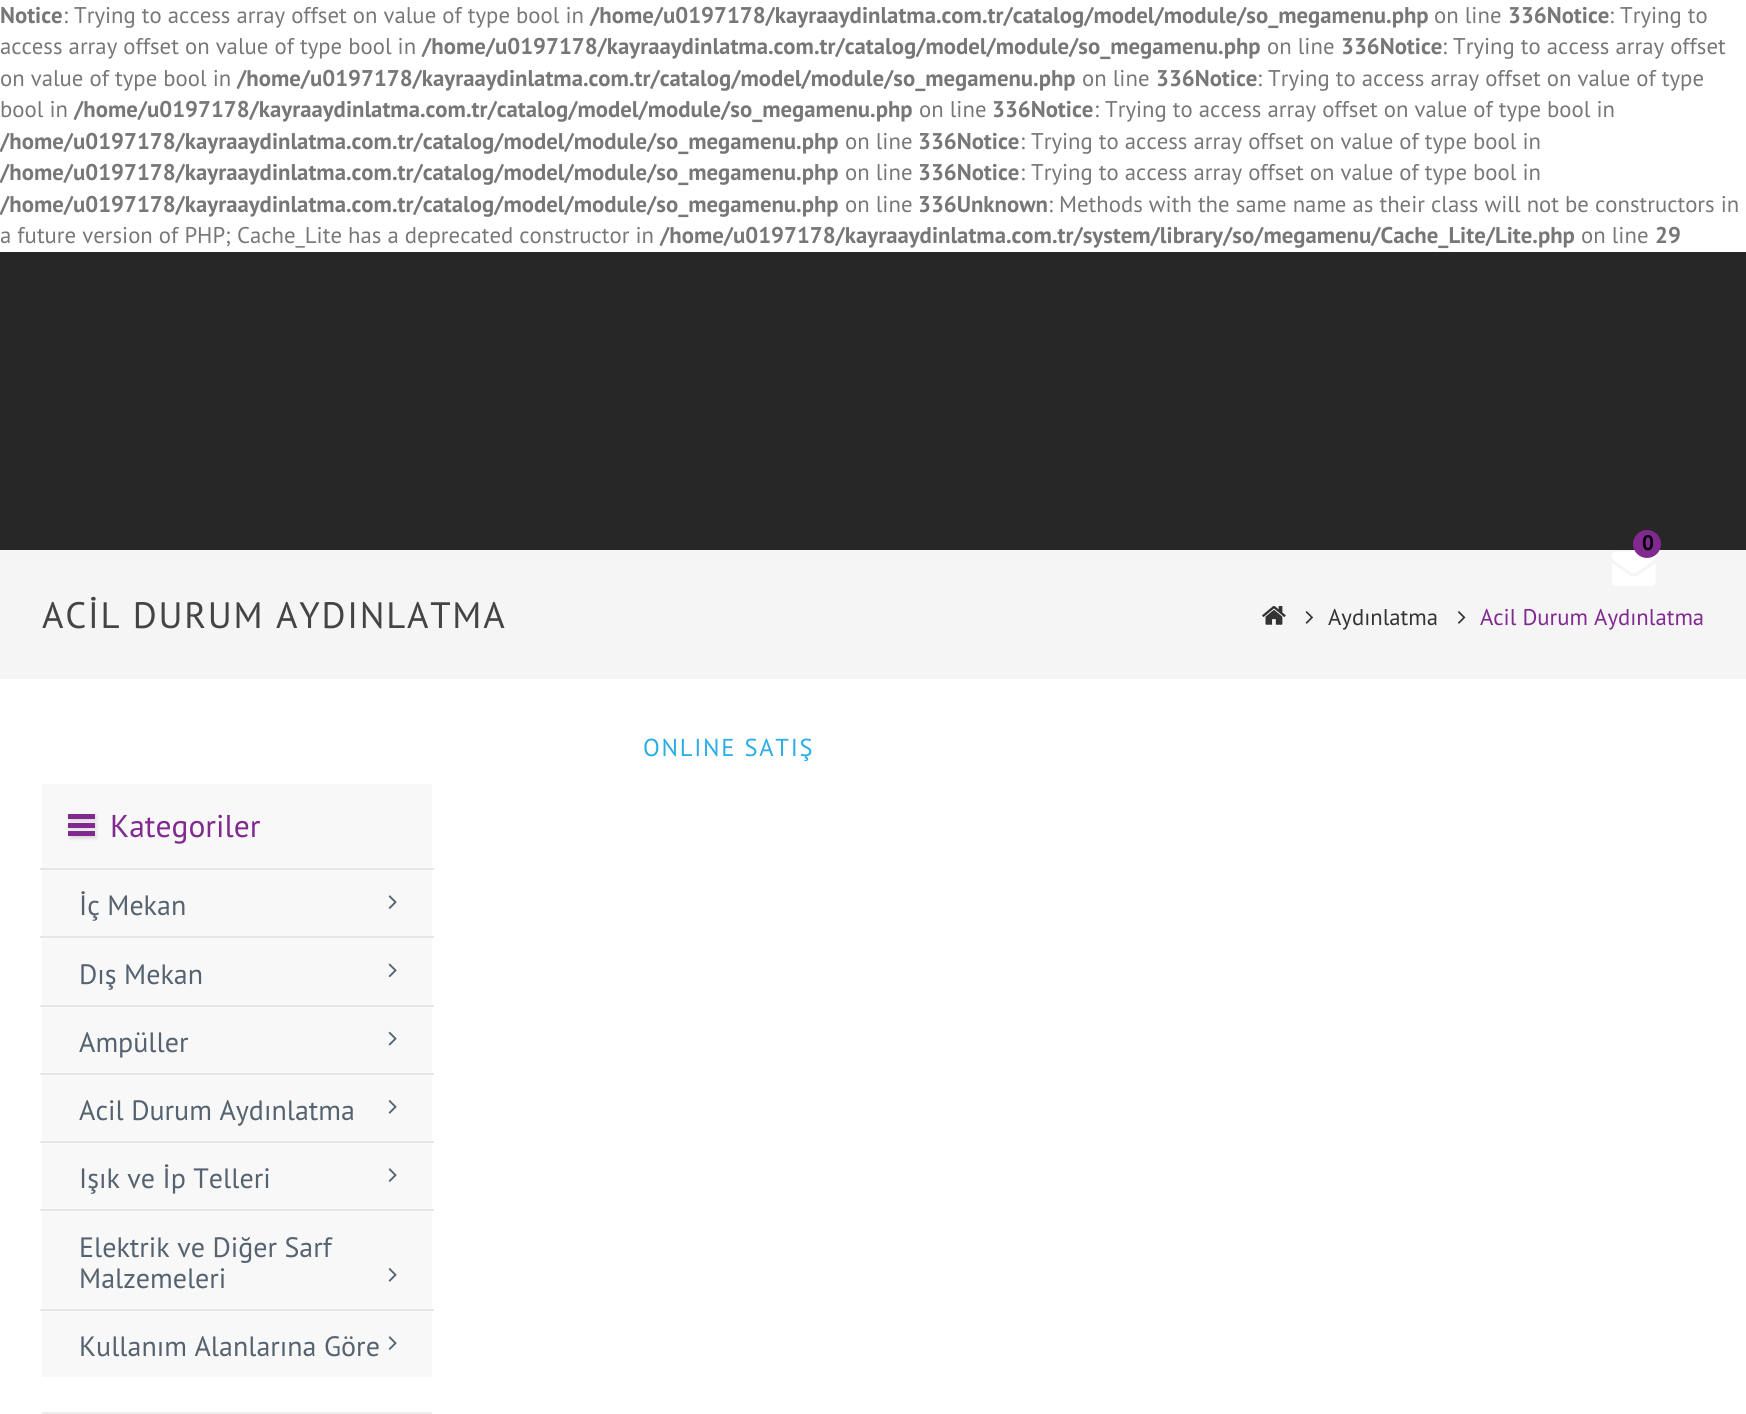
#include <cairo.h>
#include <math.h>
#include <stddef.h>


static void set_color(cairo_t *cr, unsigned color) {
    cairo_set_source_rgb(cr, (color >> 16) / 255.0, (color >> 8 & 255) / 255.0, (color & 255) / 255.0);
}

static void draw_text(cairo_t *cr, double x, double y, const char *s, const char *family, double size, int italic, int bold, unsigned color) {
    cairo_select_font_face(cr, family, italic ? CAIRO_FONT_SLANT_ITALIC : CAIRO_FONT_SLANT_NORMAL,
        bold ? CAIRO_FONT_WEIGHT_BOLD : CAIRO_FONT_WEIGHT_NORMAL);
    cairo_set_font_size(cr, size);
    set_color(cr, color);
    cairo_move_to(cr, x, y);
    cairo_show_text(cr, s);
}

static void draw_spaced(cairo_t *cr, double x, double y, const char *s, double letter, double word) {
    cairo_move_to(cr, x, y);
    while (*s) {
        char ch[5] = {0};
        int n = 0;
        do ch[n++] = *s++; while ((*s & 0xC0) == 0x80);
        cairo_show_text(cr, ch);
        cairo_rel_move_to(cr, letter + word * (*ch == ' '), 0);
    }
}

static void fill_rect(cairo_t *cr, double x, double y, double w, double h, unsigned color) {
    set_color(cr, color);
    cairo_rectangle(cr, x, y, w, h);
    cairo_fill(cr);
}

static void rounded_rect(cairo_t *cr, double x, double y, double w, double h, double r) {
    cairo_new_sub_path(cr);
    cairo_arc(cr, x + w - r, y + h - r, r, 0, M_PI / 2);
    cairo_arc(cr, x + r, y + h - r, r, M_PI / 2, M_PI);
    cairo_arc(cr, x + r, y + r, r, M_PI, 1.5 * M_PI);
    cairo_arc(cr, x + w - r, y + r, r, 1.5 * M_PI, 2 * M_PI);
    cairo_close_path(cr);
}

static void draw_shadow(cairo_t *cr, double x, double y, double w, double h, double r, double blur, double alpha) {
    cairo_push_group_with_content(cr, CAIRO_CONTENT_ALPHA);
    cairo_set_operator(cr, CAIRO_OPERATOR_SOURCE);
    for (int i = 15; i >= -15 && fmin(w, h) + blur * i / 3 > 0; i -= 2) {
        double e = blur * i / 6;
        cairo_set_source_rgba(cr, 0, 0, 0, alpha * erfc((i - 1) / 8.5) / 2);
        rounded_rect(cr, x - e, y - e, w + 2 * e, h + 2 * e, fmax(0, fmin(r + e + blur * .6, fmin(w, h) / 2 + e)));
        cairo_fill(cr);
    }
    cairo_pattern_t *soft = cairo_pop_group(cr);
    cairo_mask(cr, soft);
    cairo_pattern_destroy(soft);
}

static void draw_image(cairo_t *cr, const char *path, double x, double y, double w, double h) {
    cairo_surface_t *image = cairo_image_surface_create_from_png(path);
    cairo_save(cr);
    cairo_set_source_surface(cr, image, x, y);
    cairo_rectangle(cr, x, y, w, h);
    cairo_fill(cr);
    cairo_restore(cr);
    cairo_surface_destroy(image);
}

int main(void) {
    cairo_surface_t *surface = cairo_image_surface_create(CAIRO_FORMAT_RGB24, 1746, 1414);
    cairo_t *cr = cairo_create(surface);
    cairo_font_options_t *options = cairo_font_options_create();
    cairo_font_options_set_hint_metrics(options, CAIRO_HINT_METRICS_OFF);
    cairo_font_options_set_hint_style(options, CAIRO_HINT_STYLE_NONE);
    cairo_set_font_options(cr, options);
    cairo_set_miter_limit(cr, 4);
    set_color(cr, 0xFFFFFF);
    cairo_paint(cr);
    draw_text(cr, 0, 23, "Notice", "PT Sans", 22.75, 0, 1, 0x777777);
    draw_text(cr, 63, 23, ": Trying to access array offset on value of type bool in", "PT Sans", 22.75, 0, 0, 0x777777);
    draw_text(cr, 590, 23, "/home/u0197178/kayraaydinlatma.com.tr/catalog/model/module/so_megamenu.php", "PT Sans", 22.75, 0, 1, 0x777777);
    draw_text(cr, 1434, 23, "on line", "PT Sans", 22.75, 0, 0, 0x777777);
    draw_text(cr, 1508, 23, "336Notice", "PT Sans", 22.75, 0, 1, 0x777777);
    draw_text(cr, 1609, 23, ": Trying to", "PT Sans", 22.75, 0, 0, 0x777777);
    draw_text(cr, 0, 54, "access array offset on value of type bool in", "PT Sans", 22.75, 0, 0, 0x777777);
    draw_text(cr, 422, 54, "/home/u0197178/kayraaydinlatma.com.tr/catalog/model/module/so_megamenu.php", "PT Sans", 22.75, 0, 1, 0x777777);
    draw_text(cr, 1267, 54, "on line", "PT Sans", 22.75, 0, 0, 0x777777);
    draw_text(cr, 1341, 54, "336Notice", "PT Sans", 22.75, 0, 1, 0x777777);
    draw_text(cr, 1442, 54, ": Trying to access array offset", "PT Sans", 22.75, 0, 0, 0x777777);
    draw_text(cr, 0, 86, "on value of type bool in", "PT Sans", 22.75, 0, 0, 0x777777);
    draw_text(cr, 237, 86, "/home/u0197178/kayraaydinlatma.com.tr/catalog/model/module/so_megamenu.php", "PT Sans", 22.75, 0, 1, 0x777777);
    draw_text(cr, 1082, 86, "on line", "PT Sans", 22.75, 0, 0, 0x777777);
    draw_text(cr, 1156, 86, "336Notice", "PT Sans", 22.75, 0, 1, 0x777777);
    draw_text(cr, 1257, 86, ": Trying to access array offset on value of type", "PT Sans", 22.75, 0, 0, 0x777777);
    draw_text(cr, 0, 117, "bool in", "PT Sans", 22.75, 0, 0, 0x777777);
    draw_text(cr, 74, 117, "/home/u0197178/kayraaydinlatma.com.tr/catalog/model/module/so_megamenu.php", "PT Sans", 22.75, 0, 1, 0x777777);
    draw_text(cr, 919, 117, "on line", "PT Sans", 22.75, 0, 0, 0x777777);
    draw_text(cr, 992, 117, "336Notice", "PT Sans", 22.75, 0, 1, 0x777777);
    draw_text(cr, 1094, 117, ": Trying to access array offset on value of type bool in", "PT Sans", 22.75, 0, 0, 0x777777);
    draw_text(cr, 0, 149, "/home/u0197178/kayraaydinlatma.com.tr/catalog/model/module/so_megamenu.php", "PT Sans", 22.75, 0, 1, 0x777777);
    draw_text(cr, 845, 149, "on line", "PT Sans", 22.75, 0, 0, 0x777777);
    draw_text(cr, 918, 149, "336Notice", "PT Sans", 22.75, 0, 1, 0x777777);
    draw_text(cr, 1020, 149, ": Trying to access array offset on value of type bool in", "PT Sans", 22.75, 0, 0, 0x777777);
    draw_text(cr, 0, 180, "/home/u0197178/kayraaydinlatma.com.tr/catalog/model/module/so_megamenu.php", "PT Sans", 22.75, 0, 1, 0x777777);
    draw_text(cr, 845, 180, "on line", "PT Sans", 22.75, 0, 0, 0x777777);
    draw_text(cr, 918, 180, "336Notice", "PT Sans", 22.75, 0, 1, 0x777777);
    draw_text(cr, 1020, 180, ": Trying to access array offset on value of type bool in", "PT Sans", 22.75, 0, 0, 0x777777);
    draw_text(cr, 0, 212, "/home/u0197178/kayraaydinlatma.com.tr/catalog/model/module/so_megamenu.php", "PT Sans", 22.75, 0, 1, 0x777777);
    draw_text(cr, 845, 212, "on line", "PT Sans", 22.75, 0, 0, 0x777777);
    draw_text(cr, 918, 212, "336Unknown", "PT Sans", 22.75, 0, 1, 0x777777);
    draw_text(cr, 1048, 212, ": Methods with the same name as their class will not be constructors in", "PT Sans", 22.75, 0, 0, 0x777777);
    draw_text(cr, 0, 243, "a future version of PHP; Cache_Lite has a deprecated constructor in", "PT Sans", 22.75, 0, 0, 0x777777);
    draw_text(cr, 660, 243, "/home/u0197178/kayraaydinlatma.com.tr/system/library/so/megamenu/Cache_Lite/Lite.php", "PT Sans", 22.75, 0, 1, 0x777777);
    draw_text(cr, 1581, 243, "on line", "PT Sans", 22.75, 0, 0, 0x777777);
    draw_text(cr, 1655, 243, "29", "PT Sans", 22.75, 0, 1, 0x777777);
    fill_rect(cr, 0, 252, 1746, 298, 0x272727);
    fill_rect(cr, 0, 550, 1746, 129, 0xF5F5F5);
    draw_image(cr, "assets/img1.png", 1612, 551, 44, 35);
    set_color(cr, 0x812990);
    cairo_arc(cr, 1647, 544, 14, 0, 2 * M_PI);
    cairo_fill(cr);
    draw_text(cr, 1642, 550, "0", "PT Sans", 21, 0, 1, 0x000000);
    cairo_select_font_face(cr, "PT Sans", CAIRO_FONT_SLANT_NORMAL, CAIRO_FONT_WEIGHT_NORMAL);
    cairo_set_font_size(cr, 24.5);
    set_color(cr, 0x2AADE5);
    draw_spaced(cr, 643, 756, "ONLINE SATIŞ", 1.75, 0);
    cairo_set_font_size(cr, 36.75);
    set_color(cr, 0x444444);
    draw_spaced(cr, 42, 628, "ACİL DURUM AYDINLATMA", 1.75, 0);
    draw_image(cr, "assets/img2.png", 1262, 606, 24, 19);
    draw_image(cr, "assets/img3.png", 1305, 611, 8, 13);
    draw_text(cr, 1328, 625, "Aydınlatma", "PT Sans", 22.75, 0, 0, 0x333333);
    draw_image(cr, "assets/img4.png", 1458, 611, 8, 13);
    draw_text(cr, 1480, 625, "Acil Durum Aydınlatma", "PT Sans", 22.75, 0, 0, 0x812990);
    fill_rect(cr, 42, 784, 390, 593, 0xF8F8F8);
    set_color(cr, 0x000000);
    draw_shadow(cr, 70, 816, 26, 5, 0, 2, 0.15);
    fill_rect(cr, 68, 814, 27, 5, 0x812990);
    set_color(cr, 0x000000);
    draw_shadow(cr, 70, 824, 26, 5, 0, 2, 0.15);
    fill_rect(cr, 68, 823, 27, 5, 0x812990);
    set_color(cr, 0x000000);
    draw_shadow(cr, 70, 833, 26, 5, 0, 2, 0.15);
    fill_rect(cr, 68, 831, 27, 5, 0x812990);
    draw_text(cr, 110, 837, "Kategoriler", "PT Sans", 31.5, 0, 0, 0x812990);
    fill_rect(cr, 40, 868, 394, 2, 0xE6E6E6);
    draw_text(cr, 79, 915, "İç Mekan", "PT Sans", 28, 0, 0, 0x556270);
    draw_image(cr, "assets/img5.png", 388, 895, 9, 14);
    fill_rect(cr, 40, 936, 394, 2, 0xE6E6E6);
    draw_text(cr, 79, 984, "Dış Mekan", "PT Sans", 28, 0, 0, 0x556270);
    draw_image(cr, "assets/img6.png", 388, 963, 9, 15);
    fill_rect(cr, 40, 1005, 394, 2, 0xE6E6E6);
    draw_text(cr, 79, 1052, "Ampüller", "PT Sans", 28, 0, 0, 0x556270);
    draw_image(cr, "assets/img7.png", 388, 1031, 9, 15);
    fill_rect(cr, 40, 1073, 394, 2, 0xE6E6E6);
    draw_text(cr, 79, 1120, "Acil Durum Aydınlatma", "PT Sans", 28, 0, 0, 0x556270);
    draw_image(cr, "assets/img8.png", 388, 1100, 9, 14);
    fill_rect(cr, 40, 1141, 394, 2, 0xE6E6E6);
    draw_text(cr, 79, 1188, "Işık ve İp Telleri", "PT Sans", 28, 0, 0, 0x556270);
    draw_image(cr, "assets/img5.png", 388, 1168, 9, 14);
    fill_rect(cr, 40, 1209, 394, 2, 0xE6E6E6);
    draw_text(cr, 79, 1257, "Elektrik ve Diğer Sarf", "PT Sans", 28, 0, 0, 0x556270);
    draw_text(cr, 79, 1288, "Malzemeleri", "PT Sans", 28, 0, 0, 0x556270);
    draw_image(cr, "assets/img8.png", 388, 1268, 9, 14);
    fill_rect(cr, 40, 1309, 394, 2, 0xE6E6E6);
    draw_text(cr, 79, 1356, "Kullanım Alanlarına Göre", "PT Sans", 28, 0, 0, 0x556270);
    draw_image(cr, "assets/img5.png", 388, 1336, 9, 14);
    fill_rect(cr, 42, 1412, 390, 2, 0xEEEEEE);
    cairo_surface_write_to_png(surface, "output.png");
    cairo_font_options_destroy(options);
    cairo_destroy(cr);
    cairo_surface_destroy(surface);
    return 0;
}
